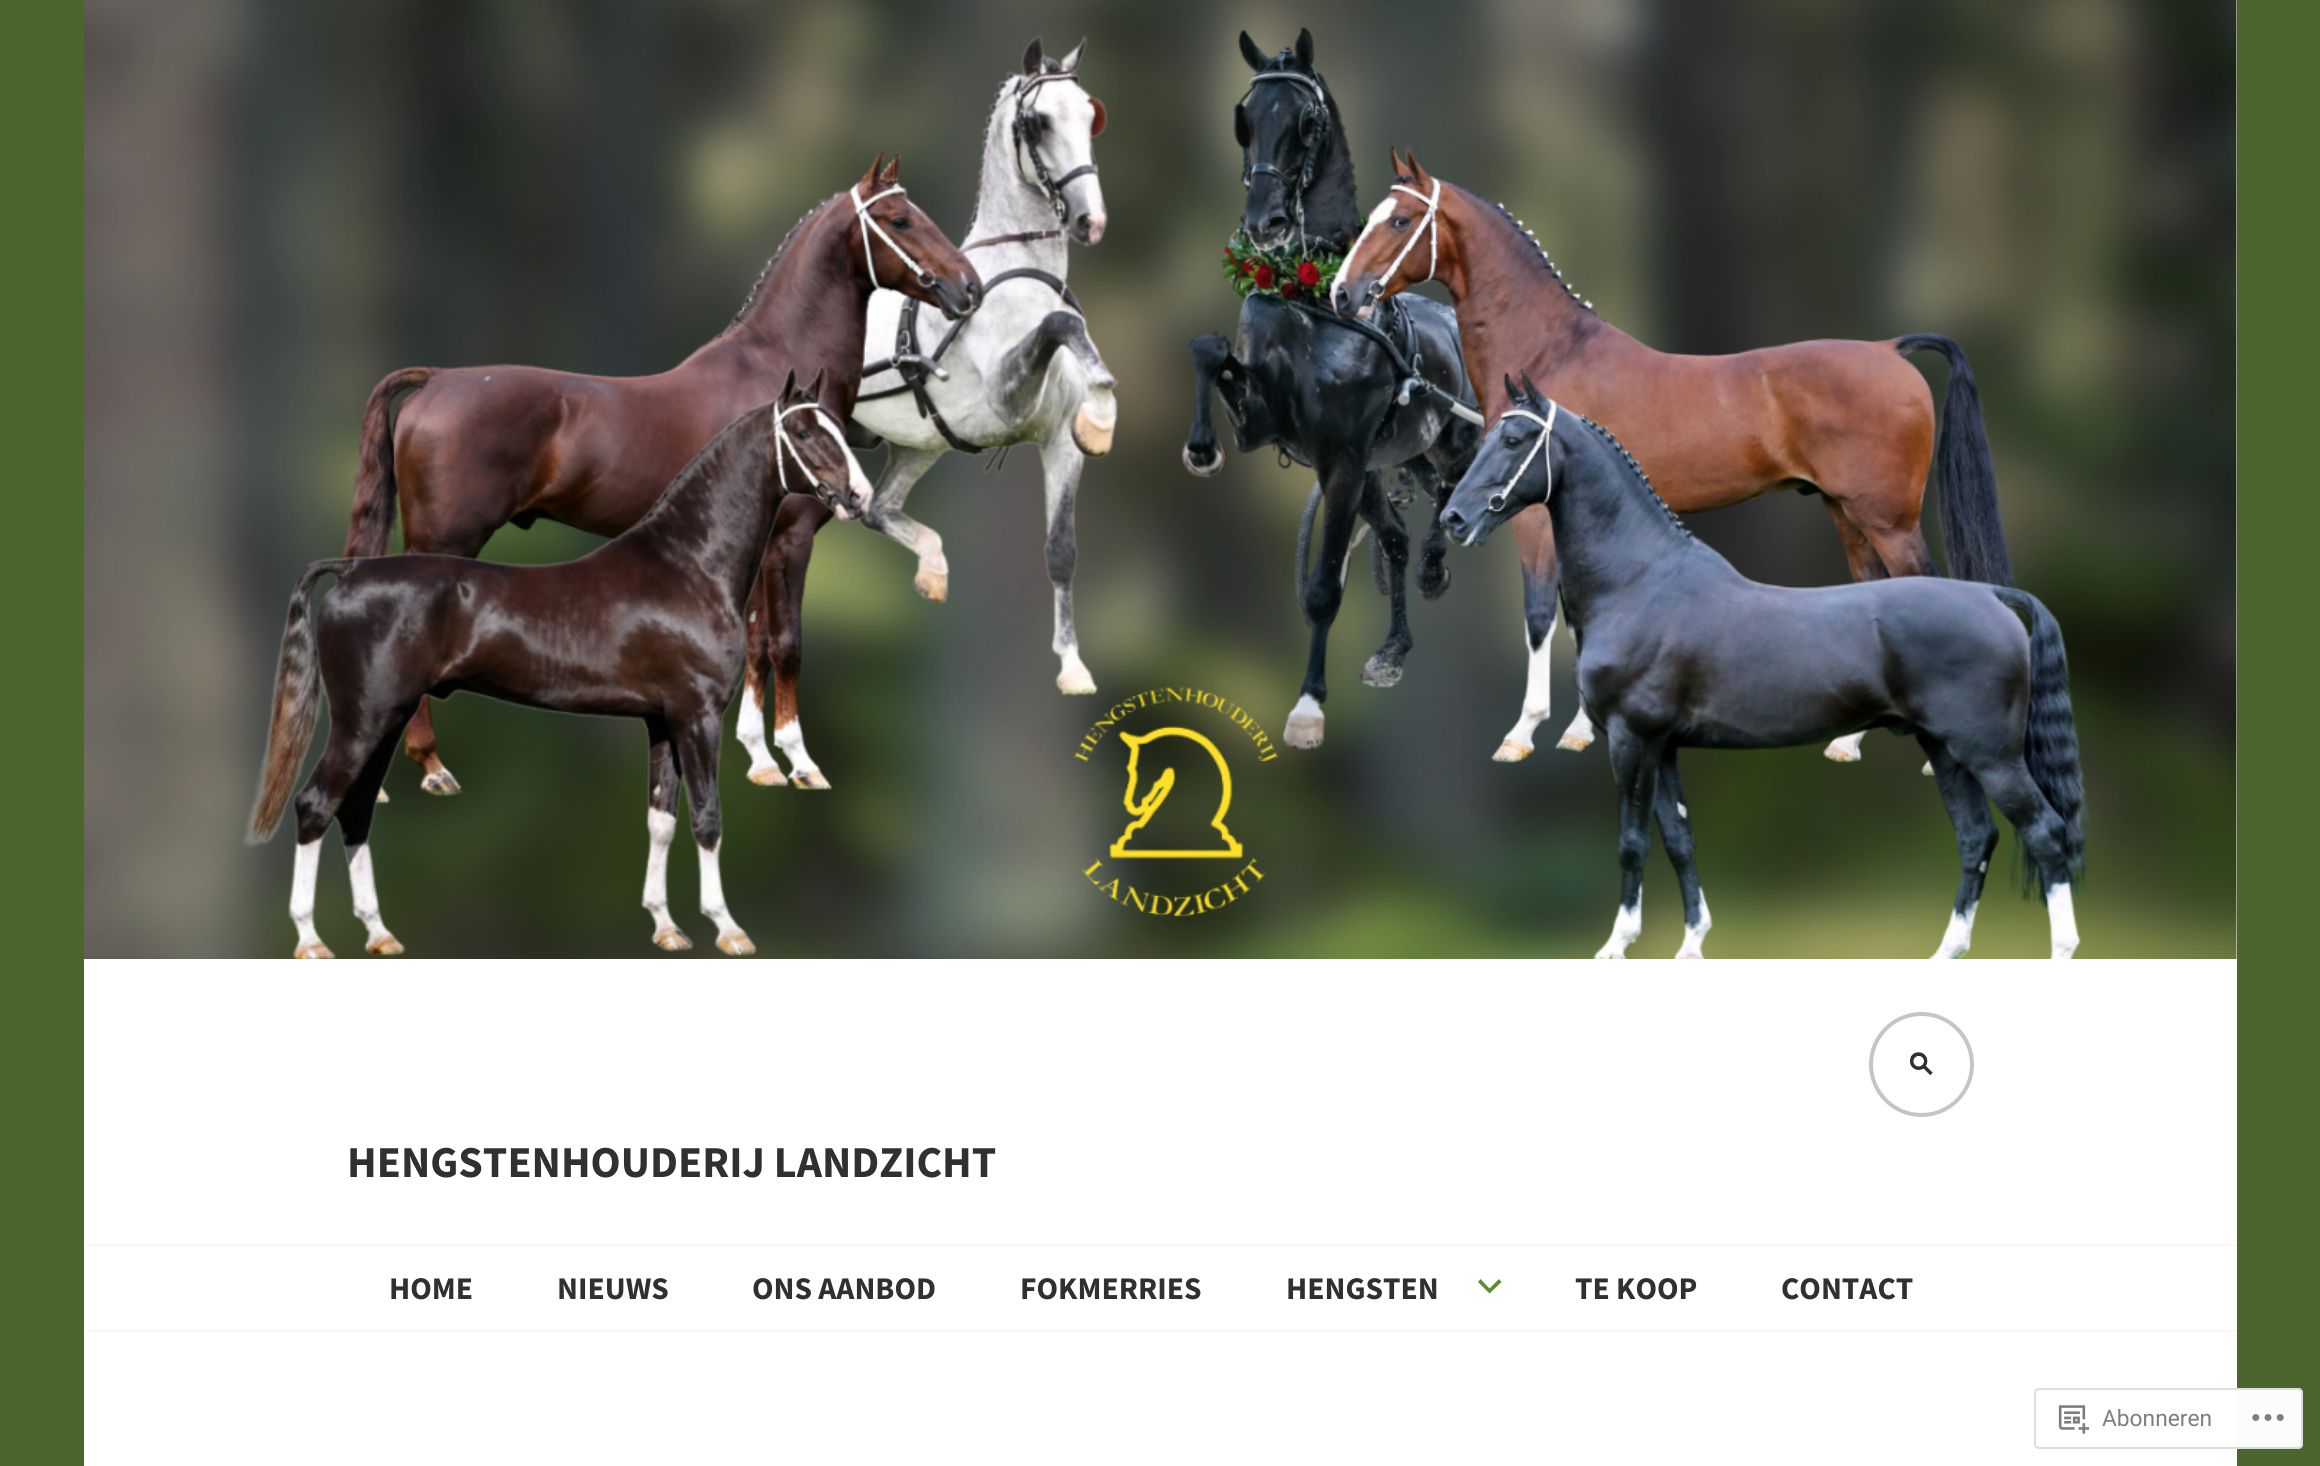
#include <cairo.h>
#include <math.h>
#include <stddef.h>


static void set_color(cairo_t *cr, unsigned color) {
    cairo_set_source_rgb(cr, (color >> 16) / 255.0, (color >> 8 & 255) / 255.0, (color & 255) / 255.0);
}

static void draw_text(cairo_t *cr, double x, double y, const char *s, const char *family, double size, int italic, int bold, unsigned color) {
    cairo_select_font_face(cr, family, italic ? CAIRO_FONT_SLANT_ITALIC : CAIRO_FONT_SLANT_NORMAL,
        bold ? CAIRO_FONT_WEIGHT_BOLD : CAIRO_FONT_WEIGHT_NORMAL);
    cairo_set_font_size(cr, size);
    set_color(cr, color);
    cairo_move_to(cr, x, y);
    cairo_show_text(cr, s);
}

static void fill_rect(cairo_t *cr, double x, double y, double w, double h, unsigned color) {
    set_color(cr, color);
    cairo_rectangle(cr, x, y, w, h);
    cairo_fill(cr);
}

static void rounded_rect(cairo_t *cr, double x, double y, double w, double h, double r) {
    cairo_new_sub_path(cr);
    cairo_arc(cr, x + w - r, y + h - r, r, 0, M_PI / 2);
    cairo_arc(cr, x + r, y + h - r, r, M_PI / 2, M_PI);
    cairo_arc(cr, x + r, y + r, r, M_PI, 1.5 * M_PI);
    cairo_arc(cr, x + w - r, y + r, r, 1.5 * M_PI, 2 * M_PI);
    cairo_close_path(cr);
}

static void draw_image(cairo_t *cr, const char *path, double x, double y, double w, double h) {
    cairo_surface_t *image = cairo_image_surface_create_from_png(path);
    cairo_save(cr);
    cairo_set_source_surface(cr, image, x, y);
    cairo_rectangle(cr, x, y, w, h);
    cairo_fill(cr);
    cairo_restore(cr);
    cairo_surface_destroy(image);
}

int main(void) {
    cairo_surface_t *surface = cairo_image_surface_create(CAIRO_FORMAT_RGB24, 2320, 1466);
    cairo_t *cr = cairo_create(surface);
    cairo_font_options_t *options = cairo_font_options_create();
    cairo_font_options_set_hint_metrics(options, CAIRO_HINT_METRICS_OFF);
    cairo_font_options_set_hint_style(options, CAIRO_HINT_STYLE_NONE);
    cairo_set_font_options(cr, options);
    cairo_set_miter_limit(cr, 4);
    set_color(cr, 0x4A662D);
    cairo_paint(cr);
    fill_rect(cr, 84, 0, 2153, 1330, 0xFFFFFF);
    fill_rect(cr, 84, 1330, 2153, 2, 0xF8F8F8);
    draw_image(cr, "assets/img1.png", 84, 0, 2153, 959);
    cairo_arc(cr, 1921.5, 1064.5, 50.5, 0, 2 * M_PI);
    set_color(cr, 0xC5C5C5);
    cairo_set_line_width(cr, 4);
    cairo_stroke(cr);
    draw_image(cr, "assets/img2.png", 1910, 1052, 23, 24);
    draw_text(cr, 347, 1177, "HENGSTENHOUDERIJ LANDZICHT", "Source Sans Pro", 44.1, 0, 1, 0x303030);
    fill_rect(cr, 84, 1244, 2153, 2, 0xF8F8F8);
    draw_text(cr, 389, 1299, "HOME", "Source Sans Pro", 31.5, 0, 1, 0x303030);
    draw_text(cr, 557, 1299, "NIEUWS", "Source Sans Pro", 31.5, 0, 1, 0x303030);
    draw_text(cr, 752, 1299, "ONS AANBOD", "Source Sans Pro", 31.5, 0, 1, 0x303030);
    draw_text(cr, 1020, 1299, "FOKMERRIES", "Source Sans Pro", 31.5, 0, 1, 0x303030);
    draw_text(cr, 1286, 1299, "HENGSTEN", "Source Sans Pro", 31.5, 0, 1, 0x303030);
    set_color(cr, 0x5F8C30);
    cairo_new_path(cr);
    cairo_move_to(cr, 1499, 1279);
    cairo_line_to(cr, 1501.5, 1282);
    cairo_line_to(cr, 1489.5, 1293.5);
    cairo_line_to(cr, 1478, 1282);
    cairo_line_to(cr, 1480.5, 1279);
    cairo_line_to(cr, 1489.5, 1288.5);
    cairo_close_path(cr);
    cairo_fill(cr);
    draw_text(cr, 1575, 1299, "TE KOOP", "Source Sans Pro", 31.5, 0, 1, 0x303030);
    draw_text(cr, 1781, 1299, "CONTACT", "Source Sans Pro", 31.5, 0, 1, 0x303030);
    fill_rect(cr, 84, 1332, 2153, 134, 0xFFFFFF);
    cairo_set_source_rgba(cr, 1, 1, 1, 0.98);
    rounded_rect(cr, 2034, 1388, 269, 61, 5);
    cairo_fill(cr);
    rounded_rect(cr, 2035, 1389, 267, 59, 4);
    cairo_set_source_rgba(cr, 0.863, 0.863, 0.871, 0.98);
    cairo_set_line_width(cr, 2);
    cairo_stroke(cr);
    draw_image(cr, "assets/img3.png", 2058, 1405, 32, 29);
    draw_text(cr, 2102, 1426, "Abonneren", "Roboto", 22.75, 0, 0, 0x7B7F85);
    draw_image(cr, "assets/img4.png", 2252, 1414, 32, 7);
    cairo_surface_write_to_png(surface, "output.png");
    cairo_font_options_destroy(options);
    cairo_destroy(cr);
    cairo_surface_destroy(surface);
    return 0;
}
